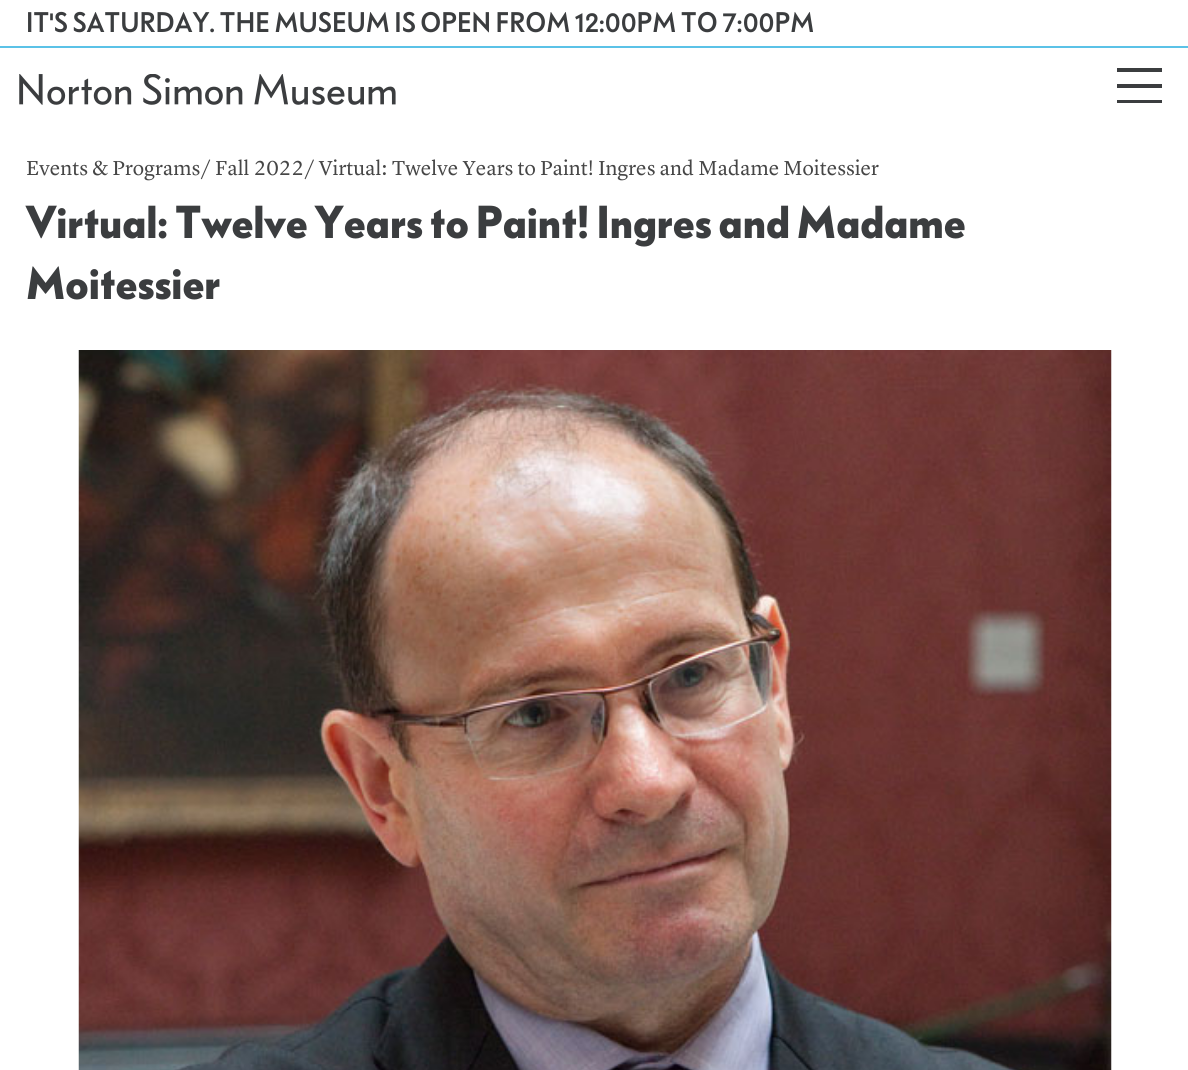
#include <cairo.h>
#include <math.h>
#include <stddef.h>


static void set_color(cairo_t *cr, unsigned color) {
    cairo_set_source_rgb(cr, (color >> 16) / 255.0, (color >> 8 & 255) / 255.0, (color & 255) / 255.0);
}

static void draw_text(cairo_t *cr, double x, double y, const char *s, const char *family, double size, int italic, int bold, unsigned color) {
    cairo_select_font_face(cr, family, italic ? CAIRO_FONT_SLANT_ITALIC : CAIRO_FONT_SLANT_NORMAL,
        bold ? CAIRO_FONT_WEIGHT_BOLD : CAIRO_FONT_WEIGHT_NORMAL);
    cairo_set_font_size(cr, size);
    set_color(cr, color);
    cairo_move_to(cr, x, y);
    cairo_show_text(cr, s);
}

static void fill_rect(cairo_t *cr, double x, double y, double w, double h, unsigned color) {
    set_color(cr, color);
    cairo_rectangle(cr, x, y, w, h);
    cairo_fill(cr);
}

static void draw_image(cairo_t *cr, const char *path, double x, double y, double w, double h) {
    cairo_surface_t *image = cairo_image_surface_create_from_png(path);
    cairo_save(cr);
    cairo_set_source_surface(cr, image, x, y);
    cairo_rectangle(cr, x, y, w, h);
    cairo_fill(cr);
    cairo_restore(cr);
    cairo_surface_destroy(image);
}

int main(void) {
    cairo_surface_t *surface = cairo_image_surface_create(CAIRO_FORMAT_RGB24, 1188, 1070);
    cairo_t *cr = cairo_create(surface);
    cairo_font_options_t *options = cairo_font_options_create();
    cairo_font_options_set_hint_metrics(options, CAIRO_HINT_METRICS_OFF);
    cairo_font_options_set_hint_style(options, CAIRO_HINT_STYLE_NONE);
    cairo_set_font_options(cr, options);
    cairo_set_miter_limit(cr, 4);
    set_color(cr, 0xFFFFFF);
    cairo_paint(cr);
    fill_rect(cr, 0, 46, 1188, 2, 0x5BC2E7);
    draw_text(cr, 26, 32, "IT'S SATURDAY. THE MUSEUM IS OPEN FROM 12:00PM TO 7:00PM", "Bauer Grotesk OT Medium", 28, 0, 0, 0x3B3D3F);
    draw_image(cr, "assets/img1.png", 19, 74, 377, 31);
    fill_rect(cr, 1117, 84, 45, 4, 0x3B3D3F);
    fill_rect(cr, 1117, 68, 45, 4, 0x3B3D3F);
    fill_rect(cr, 1117, 100, 45, 3, 0x3B3D3F);
    draw_text(cr, 26, 175, "Events & Programs/ Fall 2022/ Virtual: Twelve Years to Paint! Ingres and Madame Moitessier", "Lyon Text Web", 21, 0, 0, 0x464646);
    draw_text(cr, 26, 238, "Virtual: Twelve Years to Paint! Ingres and Madame", "Bauer Grotesk OT", 45.5, 0, 1, 0x3B3D3F);
    draw_text(cr, 26, 299, "Moitessier", "Bauer Grotesk OT", 45.5, 0, 1, 0x3B3D3F);
    draw_image(cr, "assets/img2.png", 78, 350, 1034, 720);
    cairo_surface_write_to_png(surface, "output.png");
    cairo_font_options_destroy(options);
    cairo_destroy(cr);
    cairo_surface_destroy(surface);
    return 0;
}
